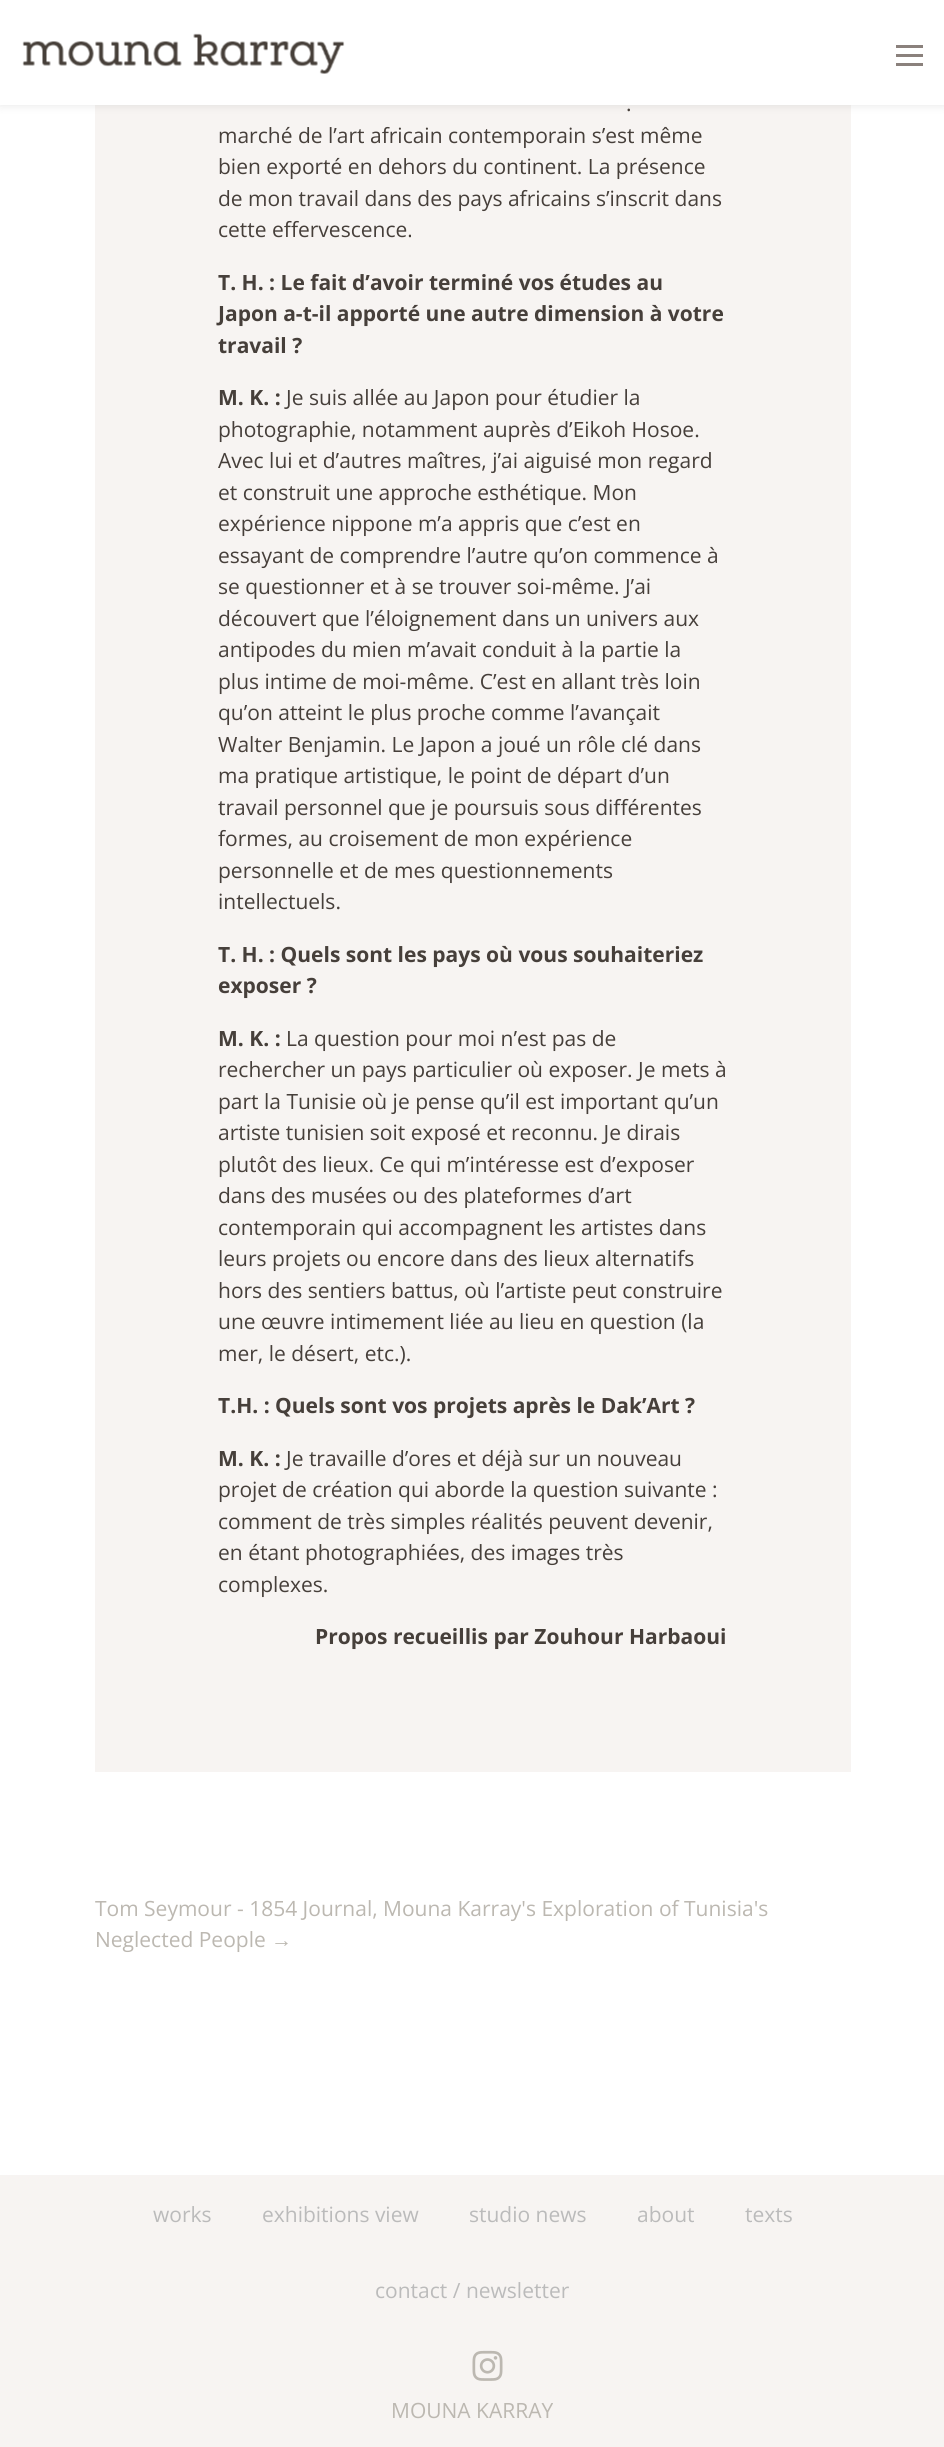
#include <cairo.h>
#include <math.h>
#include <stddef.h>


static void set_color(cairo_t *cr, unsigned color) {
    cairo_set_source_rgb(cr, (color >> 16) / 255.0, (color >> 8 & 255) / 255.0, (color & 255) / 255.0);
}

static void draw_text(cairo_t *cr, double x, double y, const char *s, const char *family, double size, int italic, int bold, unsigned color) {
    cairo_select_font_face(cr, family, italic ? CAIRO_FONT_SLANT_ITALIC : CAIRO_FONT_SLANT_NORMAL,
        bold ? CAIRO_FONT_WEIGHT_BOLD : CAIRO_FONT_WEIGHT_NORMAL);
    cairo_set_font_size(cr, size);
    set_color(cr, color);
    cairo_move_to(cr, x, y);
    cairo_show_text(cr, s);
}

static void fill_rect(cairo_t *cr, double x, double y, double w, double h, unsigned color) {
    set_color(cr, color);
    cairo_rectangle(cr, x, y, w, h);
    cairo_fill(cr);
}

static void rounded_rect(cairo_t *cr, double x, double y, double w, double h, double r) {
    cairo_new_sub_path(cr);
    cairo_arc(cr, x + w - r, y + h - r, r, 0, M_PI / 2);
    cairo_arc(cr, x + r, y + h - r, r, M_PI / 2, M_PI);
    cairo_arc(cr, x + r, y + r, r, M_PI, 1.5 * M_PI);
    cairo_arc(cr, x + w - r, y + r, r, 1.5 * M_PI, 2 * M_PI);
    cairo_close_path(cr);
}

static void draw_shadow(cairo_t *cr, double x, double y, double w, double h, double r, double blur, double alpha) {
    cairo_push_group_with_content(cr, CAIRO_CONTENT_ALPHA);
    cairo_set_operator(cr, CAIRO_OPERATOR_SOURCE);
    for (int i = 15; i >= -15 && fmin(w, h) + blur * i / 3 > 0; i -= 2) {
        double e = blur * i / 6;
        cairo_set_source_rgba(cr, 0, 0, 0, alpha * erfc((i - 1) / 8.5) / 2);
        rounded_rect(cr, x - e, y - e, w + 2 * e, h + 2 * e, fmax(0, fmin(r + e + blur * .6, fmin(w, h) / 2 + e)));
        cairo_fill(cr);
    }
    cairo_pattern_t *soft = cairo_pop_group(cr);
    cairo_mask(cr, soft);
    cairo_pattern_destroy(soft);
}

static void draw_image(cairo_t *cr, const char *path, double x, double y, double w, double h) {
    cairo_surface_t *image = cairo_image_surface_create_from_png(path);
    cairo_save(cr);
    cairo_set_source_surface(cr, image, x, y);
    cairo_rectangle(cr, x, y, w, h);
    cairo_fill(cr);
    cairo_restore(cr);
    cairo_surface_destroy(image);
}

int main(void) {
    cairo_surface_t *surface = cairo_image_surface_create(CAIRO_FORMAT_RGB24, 944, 2447);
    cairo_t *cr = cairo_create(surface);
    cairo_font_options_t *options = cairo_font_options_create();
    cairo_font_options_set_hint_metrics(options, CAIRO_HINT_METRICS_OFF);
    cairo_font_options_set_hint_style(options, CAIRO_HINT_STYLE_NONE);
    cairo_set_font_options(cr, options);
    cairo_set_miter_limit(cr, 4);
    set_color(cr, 0xFFFFFF);
    cairo_paint(cr);
    fill_rect(cr, 95, 105, 756, 1667, 0xF7F4F2);
    set_color(cr, 0x000000);
    draw_shadow(cr, 0, 0, 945, 105, 0, 5, 0.1);
    fill_rect(cr, 0, 0, 944, 105, 0xFFFFFF);
    draw_image(cr, "assets/img1.png", 22, 33, 323, 41);
    fill_rect(cr, 896, 63, 27, 3, 0x8A817C);
    fill_rect(cr, 896, 45, 27, 3, 0x8A817C);
    fill_rect(cr, 896, 54, 27, 3, 0x8A817C);
    draw_text(cr, 626, 111, ".", "Open Sans", 21, 0, 0, 0x463F3A);
    draw_text(cr, 218, 143, "marché de l’art africain contemporain s’est même", "Open Sans", 21, 0, 0, 0x463F3A);
    draw_text(cr, 218, 174, "bien exporté en dehors du continent. La présence", "Open Sans", 21, 0, 0, 0x463F3A);
    draw_text(cr, 218, 206, "de mon travail dans des pays africains s’inscrit dans", "Open Sans", 21, 0, 0, 0x463F3A);
    draw_text(cr, 218, 237, "cette effervescence.", "Open Sans", 21, 0, 0, 0x463F3A);
    draw_text(cr, 218, 290, "T. H. : Le fait d’avoir terminé vos études au", "Open Sans", 21, 0, 1, 0x463F3A);
    draw_text(cr, 218, 321, "Japon a-t-il apporté une autre dimension à votre", "Open Sans", 21, 0, 1, 0x463F3A);
    draw_text(cr, 218, 353, "travail ?", "Open Sans", 21, 0, 1, 0x463F3A);
    draw_text(cr, 218, 405, "M. K. :", "Open Sans", 21, 0, 1, 0x463F3A);
    draw_text(cr, 286, 405, "Je suis allée au Japon pour étudier la", "Open Sans", 21, 0, 0, 0x463F3A);
    draw_text(cr, 218, 437, "photographie, notamment auprès d’Eikoh Hosoe.", "Open Sans", 21, 0, 0, 0x463F3A);
    draw_text(cr, 218, 468, "Avec lui et d’autres maîtres, j’ai aiguisé mon regard", "Open Sans", 21, 0, 0, 0x463F3A);
    draw_text(cr, 218, 500, "et construit une approche esthétique. Mon", "Open Sans", 21, 0, 0, 0x463F3A);
    draw_text(cr, 218, 531, "expérience nippone m’a appris que c’est en", "Open Sans", 21, 0, 0, 0x463F3A);
    draw_text(cr, 218, 563, "essayant de comprendre l’autre qu’on commence à", "Open Sans", 21, 0, 0, 0x463F3A);
    draw_text(cr, 218, 594, "se questionner et à se trouver soi-même. J’ai", "Open Sans", 21, 0, 0, 0x463F3A);
    draw_text(cr, 218, 626, "découvert que l’éloignement dans un univers aux", "Open Sans", 21, 0, 0, 0x463F3A);
    draw_text(cr, 218, 657, "antipodes du mien m’avait conduit à la partie la", "Open Sans", 21, 0, 0, 0x463F3A);
    draw_text(cr, 218, 689, "plus intime de moi-même. C’est en allant très loin", "Open Sans", 21, 0, 0, 0x463F3A);
    draw_text(cr, 218, 720, "qu’on atteint le plus proche comme l’avançait", "Open Sans", 21, 0, 0, 0x463F3A);
    draw_text(cr, 218, 752, "Walter Benjamin. Le Japon a joué un rôle clé dans", "Open Sans", 21, 0, 0, 0x463F3A);
    draw_text(cr, 218, 783, "ma pratique artistique, le point de départ d’un", "Open Sans", 21, 0, 0, 0x463F3A);
    draw_text(cr, 218, 815, "travail personnel que je poursuis sous différentes", "Open Sans", 21, 0, 0, 0x463F3A);
    draw_text(cr, 218, 846, "formes, au croisement de mon expérience", "Open Sans", 21, 0, 0, 0x463F3A);
    draw_text(cr, 218, 878, "personnelle et de mes questionnements", "Open Sans", 21, 0, 0, 0x463F3A);
    draw_text(cr, 218, 909, "intellectuels.", "Open Sans", 21, 0, 0, 0x463F3A);
    draw_text(cr, 218, 962, "T. H. : Quels sont les pays où vous souhaiteriez", "Open Sans", 21, 0, 1, 0x463F3A);
    draw_text(cr, 218, 993, "exposer ?", "Open Sans", 21, 0, 1, 0x463F3A);
    draw_text(cr, 218, 1046, "M. K. :", "Open Sans", 21, 0, 1, 0x463F3A);
    draw_text(cr, 286, 1046, "La question pour moi n’est pas de", "Open Sans", 21, 0, 0, 0x463F3A);
    draw_text(cr, 218, 1077, "rechercher un pays particulier où exposer. Je mets à", "Open Sans", 21, 0, 0, 0x463F3A);
    draw_text(cr, 218, 1109, "part la Tunisie où je pense qu’il est important qu’un", "Open Sans", 21, 0, 0, 0x463F3A);
    draw_text(cr, 218, 1140, "artiste tunisien soit exposé et reconnu. Je dirais", "Open Sans", 21, 0, 0, 0x463F3A);
    draw_text(cr, 218, 1172, "plutôt des lieux. Ce qui m’intéresse est d’exposer", "Open Sans", 21, 0, 0, 0x463F3A);
    draw_text(cr, 218, 1203, "dans des musées ou des plateformes d’art", "Open Sans", 21, 0, 0, 0x463F3A);
    draw_text(cr, 218, 1235, "contemporain qui accompagnent les artistes dans", "Open Sans", 21, 0, 0, 0x463F3A);
    draw_text(cr, 218, 1266, "leurs projets ou encore dans des lieux alternatifs", "Open Sans", 21, 0, 0, 0x463F3A);
    draw_text(cr, 218, 1298, "hors des sentiers battus, où l’artiste peut construire", "Open Sans", 21, 0, 0, 0x463F3A);
    draw_text(cr, 218, 1329, "une œuvre intimement liée au lieu en question (la", "Open Sans", 21, 0, 0, 0x463F3A);
    draw_text(cr, 218, 1361, "mer, le désert, etc.).", "Open Sans", 21, 0, 0, 0x463F3A);
    draw_text(cr, 218, 1413, "T.H. : Quels sont vos projets après le Dak’Art ?", "Open Sans", 21, 0, 1, 0x463F3A);
    draw_text(cr, 218, 1466, "M. K. :", "Open Sans", 21, 0, 1, 0x463F3A);
    draw_text(cr, 286, 1466, "Je travaille d’ores et déjà sur un nouveau", "Open Sans", 21, 0, 0, 0x463F3A);
    draw_text(cr, 218, 1497, "projet de création qui aborde la question suivante :", "Open Sans", 21, 0, 0, 0x463F3A);
    draw_text(cr, 218, 1529, "comment de très simples réalités peuvent devenir,", "Open Sans", 21, 0, 0, 0x463F3A);
    draw_text(cr, 218, 1560, "en étant photographiées, des images très", "Open Sans", 21, 0, 0, 0x463F3A);
    draw_text(cr, 218, 1592, "complexes.", "Open Sans", 21, 0, 0, 0x463F3A);
    draw_text(cr, 315, 1644, "Propos recueillis par Zouhour Harbaoui", "Open Sans", 21, 0, 1, 0x463F3A);
    draw_text(cr, 95, 1916, "Tom Seymour - 1854 Journal, Mouna Karray's Exploration of Tunisia's", "Open Sans", 21, 0, 0, 0xBCB8B1);
    draw_text(cr, 95, 1947, "Neglected People", "Open Sans", 21, 0, 0, 0xBCB8B1);
    draw_text(cr, 271, 1947, "→", "Liberation Sans", 21, 0, 0, 0xBCB8B1);
    fill_rect(cr, 0, 2175, 944, 272, 0xF7F4F2);
    draw_text(cr, 153, 2222, "works", "Open Sans", 21, 0, 0, 0xBBBBBB);
    draw_text(cr, 262, 2222, "exhibitions view", "Open Sans", 21, 0, 0, 0xBBBBBB);
    draw_text(cr, 469, 2222, "studio news", "Open Sans", 21, 0, 0, 0xBBBBBB);
    draw_text(cr, 637, 2222, "about", "Open Sans", 21, 0, 0, 0xBBBBBB);
    draw_text(cr, 745, 2222, "texts", "Open Sans", 21, 0, 0, 0xBBBBBB);
    draw_text(cr, 375, 2298, "contact / newsletter", "Open Sans", 21, 0, 0, 0xBBBBBB);
    draw_image(cr, "assets/img2.png", 472, 2350, 31, 31);
    draw_text(cr, 391, 2418, "MOUNA KARRAY", "Open Sans", 21, 0, 0, 0xBCB8B1);
    cairo_surface_write_to_png(surface, "output.png");
    cairo_font_options_destroy(options);
    cairo_destroy(cr);
    cairo_surface_destroy(surface);
    return 0;
}
